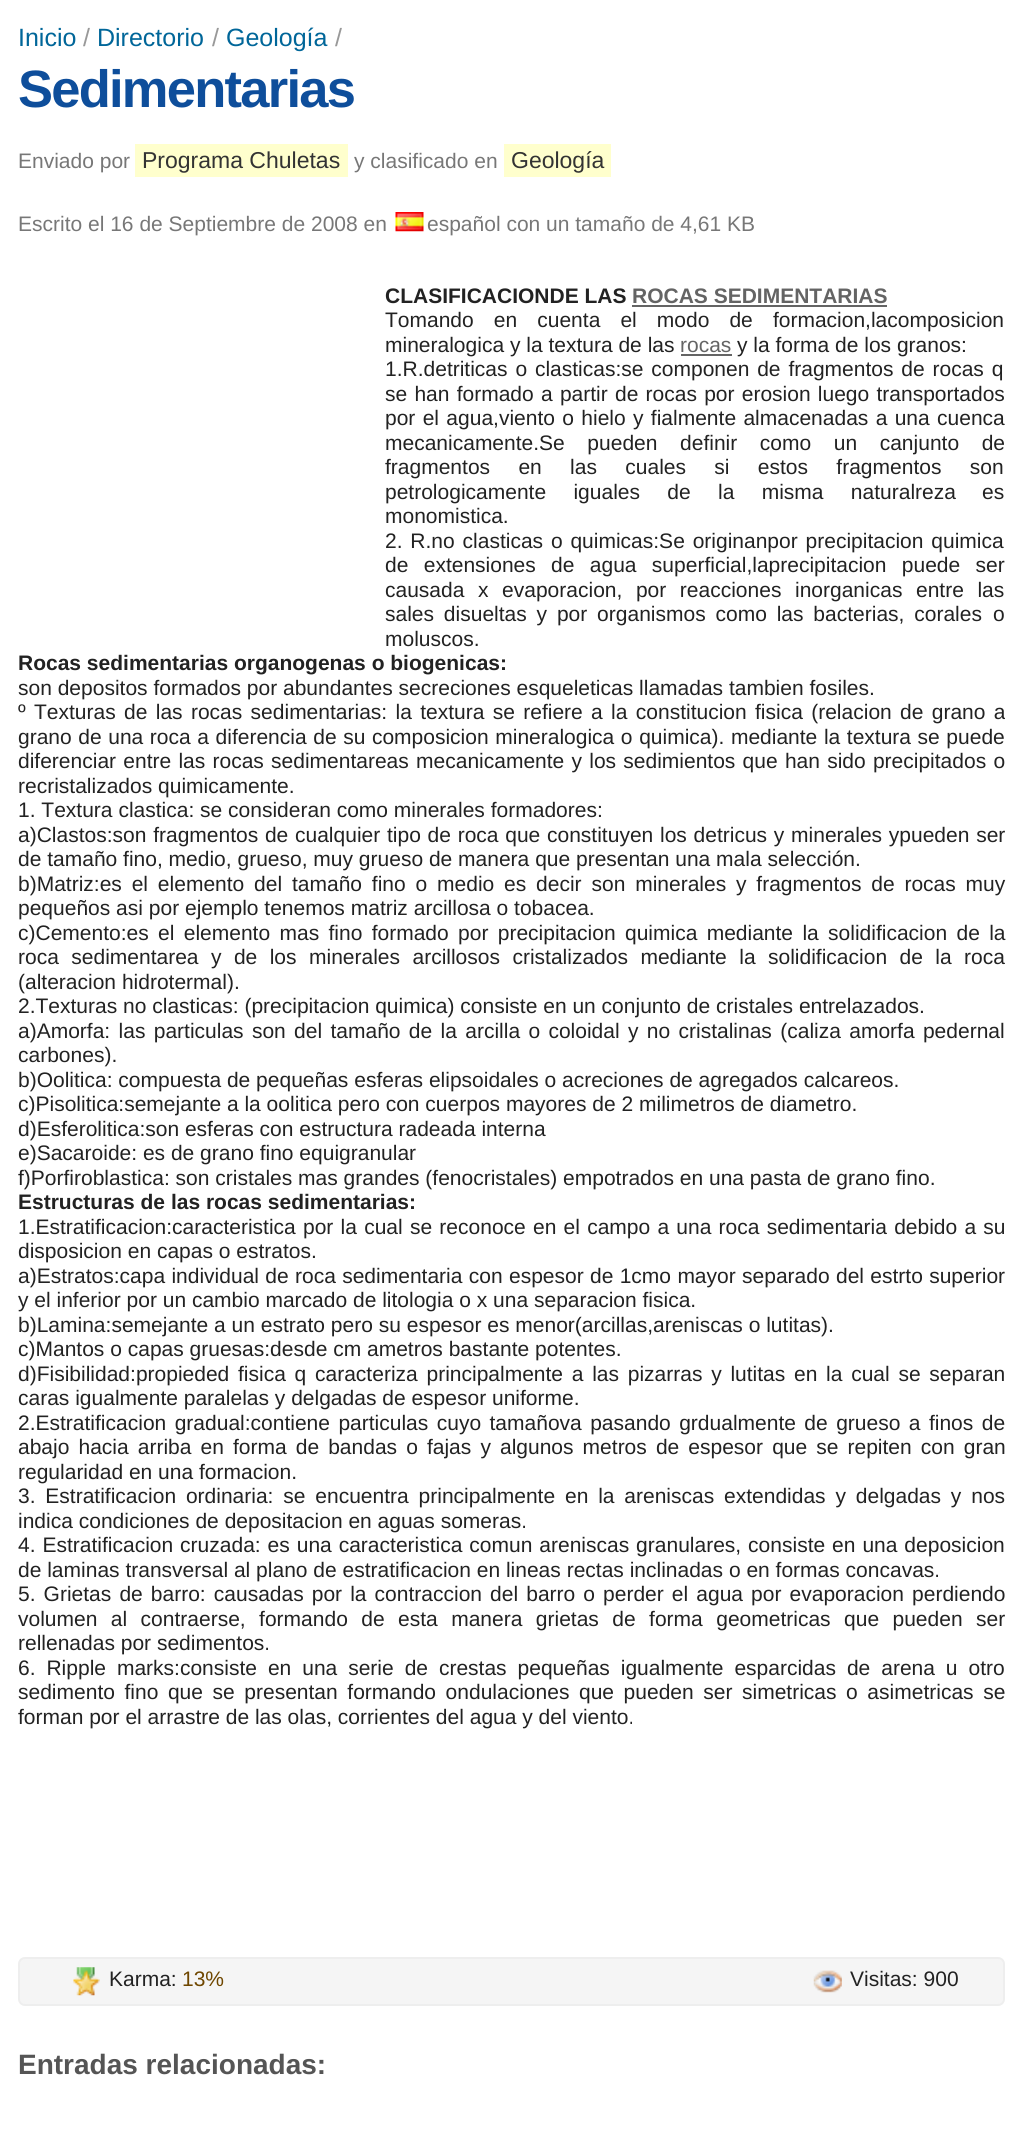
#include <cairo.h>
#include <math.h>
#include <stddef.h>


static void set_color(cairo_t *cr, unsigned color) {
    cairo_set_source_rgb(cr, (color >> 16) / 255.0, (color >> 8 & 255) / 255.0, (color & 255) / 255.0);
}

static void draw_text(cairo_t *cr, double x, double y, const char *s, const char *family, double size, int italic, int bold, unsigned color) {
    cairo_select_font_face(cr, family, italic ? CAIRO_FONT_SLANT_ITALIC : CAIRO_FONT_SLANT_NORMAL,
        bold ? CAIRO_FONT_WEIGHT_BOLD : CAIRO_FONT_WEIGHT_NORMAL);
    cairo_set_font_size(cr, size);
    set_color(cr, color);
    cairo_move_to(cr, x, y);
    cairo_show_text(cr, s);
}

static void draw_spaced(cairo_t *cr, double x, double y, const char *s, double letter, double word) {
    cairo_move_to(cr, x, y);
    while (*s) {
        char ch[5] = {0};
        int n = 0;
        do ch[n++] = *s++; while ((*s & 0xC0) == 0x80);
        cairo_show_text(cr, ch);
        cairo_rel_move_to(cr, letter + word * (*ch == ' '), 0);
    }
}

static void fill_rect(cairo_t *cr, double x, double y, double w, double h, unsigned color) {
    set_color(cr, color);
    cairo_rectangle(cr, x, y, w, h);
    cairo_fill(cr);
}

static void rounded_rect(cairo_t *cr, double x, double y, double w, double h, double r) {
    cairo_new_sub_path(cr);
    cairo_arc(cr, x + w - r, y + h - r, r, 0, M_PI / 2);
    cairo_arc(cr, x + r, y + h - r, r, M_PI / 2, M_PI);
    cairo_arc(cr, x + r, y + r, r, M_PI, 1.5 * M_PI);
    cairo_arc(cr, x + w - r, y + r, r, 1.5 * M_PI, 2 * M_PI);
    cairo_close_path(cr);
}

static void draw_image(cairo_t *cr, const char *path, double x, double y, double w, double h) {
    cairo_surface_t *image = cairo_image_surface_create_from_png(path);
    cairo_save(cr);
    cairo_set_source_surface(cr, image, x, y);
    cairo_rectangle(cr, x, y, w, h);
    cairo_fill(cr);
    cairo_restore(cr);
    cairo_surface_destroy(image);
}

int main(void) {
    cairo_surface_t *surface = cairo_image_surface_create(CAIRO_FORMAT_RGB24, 1021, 2137);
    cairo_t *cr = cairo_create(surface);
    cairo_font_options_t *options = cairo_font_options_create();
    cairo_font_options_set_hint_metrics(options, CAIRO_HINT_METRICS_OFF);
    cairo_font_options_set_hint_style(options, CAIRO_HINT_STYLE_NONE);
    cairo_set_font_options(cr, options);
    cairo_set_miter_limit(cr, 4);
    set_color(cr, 0xFFFFFF);
    cairo_paint(cr);
    draw_text(cr, 18, 46, "Inicio", "Liberation Sans", 25, 0, 0, 0x006699);
    draw_text(cr, 83, 46, "/", "Liberation Sans", 25, 0, 0, 0x999999);
    draw_text(cr, 97, 46, "Directorio", "Liberation Sans", 25, 0, 0, 0x006699);
    draw_text(cr, 212, 46, "/", "Liberation Sans", 25, 0, 0, 0x999999);
    draw_text(cr, 226, 46, "Geología", "Liberation Sans", 25, 0, 0, 0x006699);
    draw_text(cr, 335, 46, "/", "Liberation Sans", 25, 0, 0, 0x999999);
    cairo_select_font_face(cr, "Liberation Sans", CAIRO_FONT_SLANT_NORMAL, CAIRO_FONT_WEIGHT_BOLD);
    cairo_set_font_size(cr, 52.5);
    set_color(cr, 0x0E4E9B);
    draw_spaced(cr, 18, 107, "Sedimentarias", -1.75, 0);
    draw_text(cr, 18, 168, "Enviado por", "Liberation Sans", 21, 0, 0, 0x777777);
    fill_rect(cr, 135, 144, 213, 33, 0xFFFFCD);
    draw_text(cr, 142, 168, "Programa Chuletas", "Liberation Sans", 23, 0, 0, 0x333333);
    draw_text(cr, 354, 168, "y clasificado en", "Liberation Sans", 21, 0, 0, 0x777777);
    fill_rect(cr, 504, 144, 107, 33, 0xFFFFCD);
    draw_text(cr, 511, 168, "Geología", "Liberation Sans", 23, 0, 0, 0x333333);
    draw_text(cr, 18, 231, "Escrito el 16 de Septiembre de 2008 en", "Liberation Sans", 21, 0, 0, 0x777777);
    draw_image(cr, "assets/img1.png", 395, 212, 29, 20);
    draw_text(cr, 427, 231, "español con un tamaño de 4,61 KB", "Liberation Sans", 21, 0, 0, 0x777777);
    draw_text(cr, 385, 303, "CLASIFICACIONDE LAS", "Liberation Sans", 21, 0, 1, 0x222222);
    draw_text(cr, 632, 303, "ROCAS SEDIMENTARIAS", "Liberation Sans", 21, 0, 1, 0x646464);
    fill_rect(cr, 632, 305, 255, 2, 0x646464);
    cairo_select_font_face(cr, "Liberation Sans", CAIRO_FONT_SLANT_NORMAL, CAIRO_FONT_WEIGHT_NORMAL);
    set_color(cr, 0x222222);
    draw_spaced(cr, 385, 327, "Tomando en cuenta el modo de formacion,lacomposicion", 0, 14.25);
    draw_text(cr, 385, 352, "mineralogica y la textura de las", "Liberation Sans", 21, 0, 0, 0x222222);
    draw_text(cr, 680, 352, "rocas", "Liberation Sans", 21, 0, 0, 0x646464);
    fill_rect(cr, 681, 354, 51, 2, 0x646464);
    draw_text(cr, 737, 352, "y la forma de los granos:", "Liberation Sans", 21, 0, 0, 0x222222);
    draw_spaced(cr, 385, 376, "1.R.detriticas o clasticas:se componen de fragmentos de rocas q", 0, 2);
    draw_spaced(cr, 385, 401, "se han formado a partir de rocas por erosion luego transportados", 0, 1.4);
    draw_spaced(cr, 385, 425, "por el agua,viento o hielo y fialmente almacenadas a una cuenca", 0, 1.5);
    draw_spaced(cr, 385, 450, "mecanicamente.Se pueden definir como un canjunto de", 0, 16.75);
    draw_spaced(cr, 385, 474, "fragmentos en las cuales si estos fragmentos son", 0, 22.5);
    draw_spaced(cr, 385, 499, "petrologicamente iguales de la misma naturalreza", 0, 21.5);
    draw_text(cr, 982, 499, "es", "Liberation Sans", 21, 0, 0, 0x222222);
    draw_text(cr, 385, 523, "monomistica.", "Liberation Sans", 21, 0, 0, 0x222222);
    draw_spaced(cr, 385, 548, "2. R.no clasticas o quimicas:Se originanpor precipitacion quimica", 0, 2);
    draw_spaced(cr, 385, 572, "de extensiones de agua superficial,laprecipitacion puede ser", 0, 9.5);
    draw_spaced(cr, 385, 597, "causada x evaporacion, por reacciones inorganicas entre las", 0, 7.75);
    draw_spaced(cr, 385, 621, "sales disueltas y por organismos como las bacterias, corales", 0, 4);
    draw_text(cr, 993, 621, "o", "Liberation Sans", 21, 0, 0, 0x222222);
    draw_text(cr, 385, 646, "moluscos.", "Liberation Sans", 21, 0, 0, 0x222222);
    draw_text(cr, 18, 670, "Rocas sedimentarias organogenas o biogenicas:", "Liberation Sans", 21, 0, 1, 0x222222);
    draw_text(cr, 18, 695, "son depositos formados por abundantes secreciones esqueleticas llamadas tambien fosiles.", "Liberation Sans", 21, 0, 0, 0x222222);
    cairo_save(cr);
    cairo_rectangle(cr, 18, 284, 987, 1638);
    cairo_clip(cr);
    draw_spaced(cr, 18, 719, "º Texturas de las rocas sedimentarias: la textura se refiere a la constitucion fisica (relacion de grano a", 0, 2.5);
    cairo_restore(cr);
    draw_spaced(cr, 18, 744, "grano de una roca a diferencia de su composicion mineralogica o quimica). mediante la textura se puede", 0, 0.75);
    draw_spaced(cr, 18, 768, "diferenciar entre las rocas sedimentareas mecanicamente y los sedimientos que han sido precipitados o", 0, 1.4);
    draw_text(cr, 18, 793, "recristalizados quimicamente.", "Liberation Sans", 21, 0, 0, 0x222222);
    draw_text(cr, 18, 817, "1. Textura clastica: se consideran como minerales formadores:", "Liberation Sans", 21, 0, 0, 0x222222);
    draw_spaced(cr, 18, 842, "a)Clastos:son fragmentos de cualquier tipo de roca que constituyen los detricus y minerales ypueden ser", 0, 0.9);
    draw_text(cr, 18, 866, "de tamaño fino, medio, grueso, muy grueso de manera que presentan una mala selección.", "Liberation Sans", 21, 0, 0, 0x222222);
    draw_spaced(cr, 18, 891, "b)Matriz:es el elemento del tamaño fino o medio es decir son minerales y fragmentos de rocas muy", 0, 4);
    draw_text(cr, 18, 915, "pequeños asi por ejemplo tenemos matriz arcillosa o tobacea.", "Liberation Sans", 21, 0, 0, 0x222222);
    draw_spaced(cr, 18, 940, "c)Cemento:es el elemento mas fino formado por precipitacion quimica mediante la solidificacion de la", 0, 3.5);
    draw_spaced(cr, 18, 964, "roca sedimentarea y de los minerales arcillosos cristalizados mediante la solidificacion de la roca", 0, 6.6);
    draw_text(cr, 18, 989, "(alteracion hidrotermal).", "Liberation Sans", 21, 0, 0, 0x222222);
    draw_text(cr, 18, 1013, "2.Texturas no clasticas: (precipitacion quimica) consiste en un conjunto de cristales entrelazados.", "Liberation Sans", 21, 0, 0, 0x222222);
    draw_spaced(cr, 18, 1038, "a)Amorfa: las particulas son del tamaño de la arcilla o coloidal y no cristalinas (caliza amorfa pedernal", 0, 2.5);
    draw_text(cr, 18, 1062, "carbones).", "Liberation Sans", 21, 0, 0, 0x222222);
    draw_text(cr, 18, 1087, "b)Oolitica: compuesta de pequeñas esferas elipsoidales o acreciones de agregados calcareos.", "Liberation Sans", 21, 0, 0, 0x222222);
    draw_text(cr, 18, 1111, "c)Pisolitica:semejante a la oolitica pero con cuerpos mayores de 2 milimetros de diametro.", "Liberation Sans", 21, 0, 0, 0x222222);
    draw_text(cr, 18, 1136, "d)Esferolitica:son esferas con estructura radeada interna", "Liberation Sans", 21, 0, 0, 0x222222);
    draw_text(cr, 18, 1160, "e)Sacaroide: es de grano fino equigranular", "Liberation Sans", 21, 0, 0, 0x222222);
    draw_text(cr, 18, 1185, "f)Porfiroblastica: son cristales mas grandes (fenocristales) empotrados en una pasta de grano fino.", "Liberation Sans", 21, 0, 0, 0x222222);
    draw_text(cr, 18, 1209, "Estructuras de las rocas sedimentarias:", "Liberation Sans", 21, 0, 1, 0x222222);
    cairo_select_font_face(cr, "Liberation Sans", CAIRO_FONT_SLANT_NORMAL, CAIRO_FONT_WEIGHT_NORMAL);
    draw_spaced(cr, 18, 1234, "1.Estratificacion:caracteristica por la cual se reconoce en el campo a una roca sedimentaria debido a su", 0, 1.4);
    draw_text(cr, 18, 1258, "disposicion en capas o estratos.", "Liberation Sans", 21, 0, 0, 0x222222);
    draw_spaced(cr, 18, 1283, "a)Estratos:capa individual de roca sedimentaria con espesor de 1cmo mayor separado del estrto superior", 0, 0.5);
    draw_text(cr, 18, 1307, "y el inferior por un cambio marcado de litologia o x una separacion fisica.", "Liberation Sans", 21, 0, 0, 0x222222);
    draw_text(cr, 18, 1332, "b)Lamina:semejante a un estrato pero su espesor es menor(arcillas,areniscas o lutitas).", "Liberation Sans", 21, 0, 0, 0x222222);
    draw_text(cr, 18, 1356, "c)Mantos o capas gruesas:desde cm ametros bastante potentes.", "Liberation Sans", 21, 0, 0, 0x222222);
    draw_spaced(cr, 18, 1381, "d)Fisibilidad:propieded fisica q caracteriza principalmente a las pizarras y lutitas en la cual se separan", 0, 2.9);
    draw_text(cr, 18, 1405, "caras igualmente paralelas y delgadas de espesor uniforme.", "Liberation Sans", 21, 0, 0, 0x222222);
    draw_spaced(cr, 18, 1430, "2.Estratificacion gradual:contiene particulas cuyo tamañova pasando grdualmente de grueso a finos de", 0, 2.6);
    draw_spaced(cr, 18, 1454, "abajo hacia arriba en forma de bandas o fajas y algunos metros de espesor que se repiten con gran", 0, 3.25);
    draw_text(cr, 18, 1479, "regularidad en una formacion.", "Liberation Sans", 21, 0, 0, 0x222222);
    draw_spaced(cr, 18, 1503, "3. Estratificacion ordinaria: se encuentra principalmente en la areniscas extendidas y delgadas y nos", 0, 4);
    draw_text(cr, 18, 1528, "indica condiciones de depositacion en aguas someras.", "Liberation Sans", 21, 0, 0, 0x222222);
    draw_spaced(cr, 18, 1552, "4. Estratificacion cruzada: es una caracteristica comun areniscas granulares, consiste en una deposicion", 0, 1.1);
    draw_text(cr, 18, 1577, "de laminas transversal al plano de estratificacion en lineas rectas inclinadas o en formas concavas.", "Liberation Sans", 21, 0, 0, 0x222222);
    draw_spaced(cr, 18, 1601, "5. Grietas de barro: causadas por la contraccion del barro o perder el agua por evaporacion perdiendo", 0, 2.25);
    draw_spaced(cr, 18, 1626, "volumen al contraerse, formando de esta manera grietas de forma geometricas que pueden ser", 0, 7.6);
    draw_text(cr, 18, 1650, "rellenadas por sedimentos.", "Liberation Sans", 21, 0, 0, 0x222222);
    draw_spaced(cr, 18, 1675, "6. Ripple marks:consiste en una serie de crestas pequeñas igualmente esparcidas de arena u otro", 0, 5.1);
    draw_spaced(cr, 18, 1699, "sedimento fino que se presentan formando ondulaciones que pueden ser simetricas o asimetricas se", 0, 3.75);
    draw_text(cr, 18, 1724, "forman por el arrastre de las olas, corrientes del agua y del viento.", "Liberation Sans", 21, 0, 0, 0x222222);
    set_color(cr, 0xF5F5F5);
    rounded_rect(cr, 19, 1958, 985, 47, 6);
    cairo_fill_preserve(cr);
    set_color(cr, 0xEEEEEE);
    cairo_stroke(cr);
    draw_image(cr, "assets/img2.png", 73, 1967, 27, 29);
    draw_text(cr, 109, 1986, "Karma:", "Liberation Sans", 21, 0, 0, 0x222222);
    draw_text(cr, 182, 1986, "13%", "Liberation Sans", 21, 0, 0, 0x6F4700);
    draw_image(cr, "assets/img3.png", 813, 1970, 29, 23);
    draw_text(cr, 850, 1986, "Visitas: 900", "Liberation Sans", 21, 0, 0, 0x222222);
    draw_text(cr, 18, 2074, "Entradas relacionadas:", "Liberation Sans", 28, 0, 1, 0x555555);
    cairo_surface_write_to_png(surface, "output.png");
    cairo_font_options_destroy(options);
    cairo_destroy(cr);
    cairo_surface_destroy(surface);
    return 0;
}
